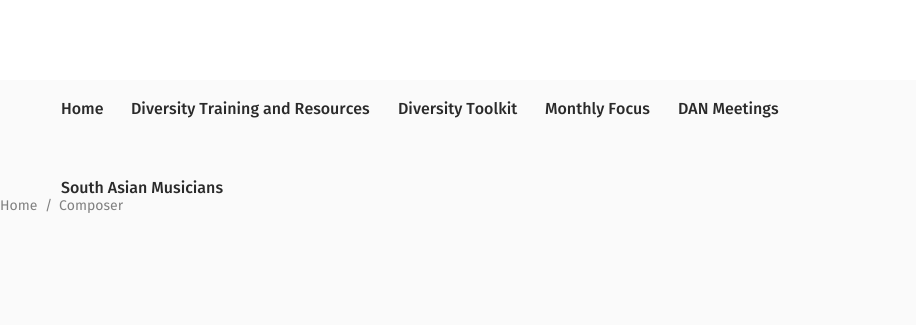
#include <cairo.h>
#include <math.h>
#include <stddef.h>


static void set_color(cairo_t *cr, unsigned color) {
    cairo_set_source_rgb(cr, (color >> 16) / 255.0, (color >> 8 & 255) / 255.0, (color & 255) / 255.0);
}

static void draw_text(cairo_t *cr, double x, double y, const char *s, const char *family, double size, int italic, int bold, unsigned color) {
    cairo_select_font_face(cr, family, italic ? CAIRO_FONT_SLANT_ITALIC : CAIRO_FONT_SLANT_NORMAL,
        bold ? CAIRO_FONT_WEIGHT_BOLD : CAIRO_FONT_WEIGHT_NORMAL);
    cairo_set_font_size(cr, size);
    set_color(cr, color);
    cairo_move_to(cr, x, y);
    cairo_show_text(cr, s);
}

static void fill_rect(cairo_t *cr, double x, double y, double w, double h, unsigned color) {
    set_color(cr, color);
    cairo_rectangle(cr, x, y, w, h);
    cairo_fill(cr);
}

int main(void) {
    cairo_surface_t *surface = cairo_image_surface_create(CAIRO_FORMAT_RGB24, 916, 325);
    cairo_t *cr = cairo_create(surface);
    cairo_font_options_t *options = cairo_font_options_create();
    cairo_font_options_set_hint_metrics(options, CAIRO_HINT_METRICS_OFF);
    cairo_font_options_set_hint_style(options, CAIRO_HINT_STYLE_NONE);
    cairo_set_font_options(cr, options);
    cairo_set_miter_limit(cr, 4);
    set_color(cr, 0xFFFFFF);
    cairo_paint(cr);
    fill_rect(cr, 0, 80, 916, 245, 0xFAFAFA);
    draw_text(cr, 61, 114, "Home", "Fira Sans Medium", 16, 0, 0, 0x2A2A2A);
    draw_text(cr, 131, 114, "Diversity Training and Resources", "Fira Sans Medium", 16, 0, 0, 0x2A2A2A);
    draw_text(cr, 398, 114, "Diversity Toolkit", "Fira Sans Medium", 16, 0, 0, 0x2A2A2A);
    draw_text(cr, 545, 114, "Monthly Focus", "Fira Sans Medium", 16, 0, 0, 0x2A2A2A);
    draw_text(cr, 678, 114, "DAN Meetings", "Fira Sans Medium", 16, 0, 0, 0x2A2A2A);
    draw_text(cr, 61, 193, "South Asian Musicians", "Fira Sans Medium", 16, 0, 0, 0x2A2A2A);
    draw_text(cr, 0, 210, "Home", "Fira Sans", 14, 0, 0, 0x808080);
    draw_text(cr, 45, 210, "/", "Fira Sans", 14, 0, 0, 0x808080);
    draw_text(cr, 59, 210, "Composer", "Fira Sans", 14, 0, 0, 0x808080);
    cairo_surface_write_to_png(surface, "output.png");
    cairo_font_options_destroy(options);
    cairo_destroy(cr);
    cairo_surface_destroy(surface);
    return 0;
}
